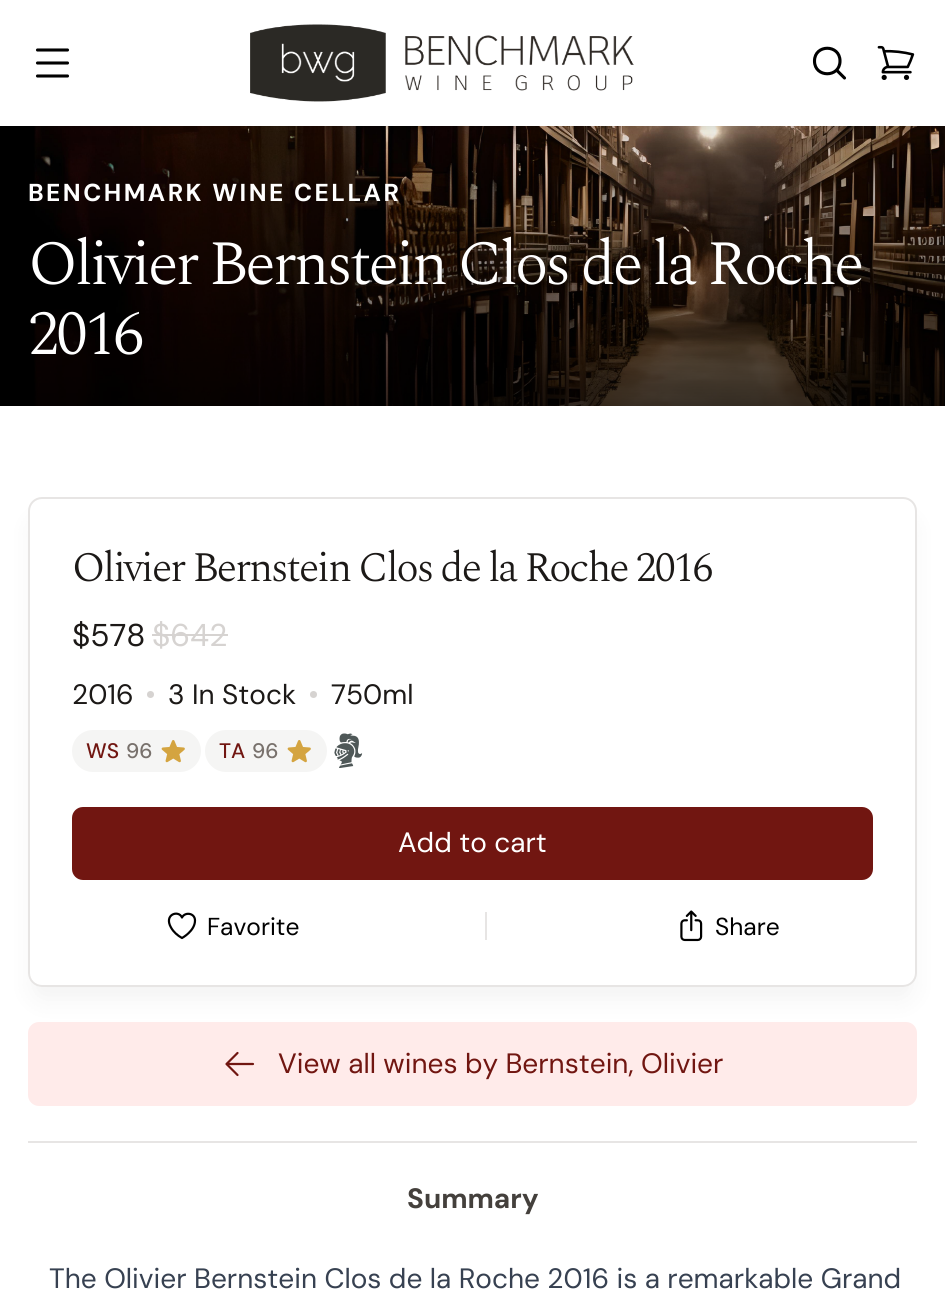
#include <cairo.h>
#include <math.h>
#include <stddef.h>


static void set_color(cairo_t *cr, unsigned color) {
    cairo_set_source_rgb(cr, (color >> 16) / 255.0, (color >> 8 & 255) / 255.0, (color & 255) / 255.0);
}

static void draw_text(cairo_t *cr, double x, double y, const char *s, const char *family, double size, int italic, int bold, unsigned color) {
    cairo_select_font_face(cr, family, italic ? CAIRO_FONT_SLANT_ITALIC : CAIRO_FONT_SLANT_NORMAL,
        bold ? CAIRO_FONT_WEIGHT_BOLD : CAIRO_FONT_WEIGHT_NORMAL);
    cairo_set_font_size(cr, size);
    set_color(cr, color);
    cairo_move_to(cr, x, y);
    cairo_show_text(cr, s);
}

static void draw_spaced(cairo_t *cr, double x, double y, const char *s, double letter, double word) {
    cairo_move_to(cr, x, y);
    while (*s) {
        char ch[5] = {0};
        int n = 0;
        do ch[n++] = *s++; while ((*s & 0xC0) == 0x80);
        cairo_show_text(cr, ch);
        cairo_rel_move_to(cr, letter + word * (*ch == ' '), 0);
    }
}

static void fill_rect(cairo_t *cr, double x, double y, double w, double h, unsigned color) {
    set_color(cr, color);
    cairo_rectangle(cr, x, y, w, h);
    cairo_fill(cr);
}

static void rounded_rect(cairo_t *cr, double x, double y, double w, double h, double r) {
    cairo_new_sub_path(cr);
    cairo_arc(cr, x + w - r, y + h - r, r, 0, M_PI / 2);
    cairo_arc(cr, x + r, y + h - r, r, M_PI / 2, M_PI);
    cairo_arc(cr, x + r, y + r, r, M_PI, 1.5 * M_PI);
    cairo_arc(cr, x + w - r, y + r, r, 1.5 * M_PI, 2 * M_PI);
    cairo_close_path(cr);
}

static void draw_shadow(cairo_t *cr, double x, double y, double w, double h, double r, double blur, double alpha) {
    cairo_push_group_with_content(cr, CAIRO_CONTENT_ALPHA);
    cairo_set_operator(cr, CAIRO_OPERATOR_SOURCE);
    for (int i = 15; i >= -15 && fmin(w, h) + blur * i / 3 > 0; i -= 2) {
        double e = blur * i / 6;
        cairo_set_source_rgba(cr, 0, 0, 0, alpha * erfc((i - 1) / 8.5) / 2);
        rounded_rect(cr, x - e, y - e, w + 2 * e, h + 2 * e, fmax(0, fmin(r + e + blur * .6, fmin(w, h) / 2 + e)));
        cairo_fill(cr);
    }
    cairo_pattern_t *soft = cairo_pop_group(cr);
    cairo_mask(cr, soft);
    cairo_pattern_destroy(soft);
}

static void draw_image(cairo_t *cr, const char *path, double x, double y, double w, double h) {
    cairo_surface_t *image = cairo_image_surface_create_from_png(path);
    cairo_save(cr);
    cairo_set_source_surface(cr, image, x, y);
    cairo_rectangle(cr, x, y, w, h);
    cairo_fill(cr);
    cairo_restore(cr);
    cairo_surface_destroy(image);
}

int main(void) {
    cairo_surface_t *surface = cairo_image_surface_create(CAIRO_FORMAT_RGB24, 945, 1313);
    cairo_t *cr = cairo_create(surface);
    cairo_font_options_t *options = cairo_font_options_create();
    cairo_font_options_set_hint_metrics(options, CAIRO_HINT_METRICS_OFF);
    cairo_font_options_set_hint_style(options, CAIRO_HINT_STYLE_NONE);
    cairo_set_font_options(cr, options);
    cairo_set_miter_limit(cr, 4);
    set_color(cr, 0xFFFFFF);
    cairo_paint(cr);
    draw_image(cr, "assets/img3.png", 0, 126, 945, 280);
    cairo_save(cr);
    cairo_rectangle(cr, 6, 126, 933, 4);
    cairo_clip(cr);
    set_color(cr, 0x000000);
    draw_shadow(cr, 7, 14, 931, 112, 0, 5, 0.1);
    cairo_restore(cr);
    cairo_save(cr);
    cairo_rectangle(cr, 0, 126, 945, 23);
    cairo_clip(cr);
    set_color(cr, 0x000000);
    draw_shadow(cr, 5, 23, 935, 115, 0, 13, 0.1);
    cairo_restore(cr);
    cairo_new_path(cr);
    cairo_move_to(cr, 37.5, 50);
    cairo_line_to(cr, 67.5, 50);
    cairo_move_to(cr, 37.5, 76);
    cairo_line_to(cr, 67.5, 76);
    cairo_move_to(cr, 37.5, 63);
    cairo_line_to(cr, 67.5, 63);
    set_color(cr, 0x000000);
    cairo_set_line_width(cr, 3.1);
    cairo_set_line_cap(cr, CAIRO_LINE_CAP_ROUND);
    cairo_set_line_join(cr, CAIRO_LINE_JOIN_ROUND);
    cairo_stroke(cr);
    draw_image(cr, "assets/img1.png", 250, 24, 384, 78);
    cairo_new_path(cr);
    cairo_move_to(cr, 844.5, 78);
    cairo_line_to(cr, 836.5, 70);
    cairo_move_to(cr, 814.5, 61);
    cairo_curve_to(cr, 814.5, 44, 840, 44, 840, 61);
    cairo_curve_to(cr, 840, 78, 814.5, 78, 814.5, 61);
    cairo_close_path(cr);
    cairo_stroke(cr);
    draw_image(cr, "assets/img2.png", 877, 45, 38, 35);
    cairo_select_font_face(cr, "DM Sans", CAIRO_FONT_SLANT_NORMAL, CAIRO_FONT_WEIGHT_BOLD);
    cairo_set_font_size(cr, 24.5);
    set_color(cr, 0xFFFFFF);
    draw_spaced(cr, 28, 201, "BENCHMARK WINE CELLAR", 2.45, 0);
    cairo_select_font_face(cr, "Spectral Light", CAIRO_FONT_SLANT_NORMAL, CAIRO_FONT_WEIGHT_NORMAL);
    cairo_set_font_size(cr, 63);
    draw_spaced(cr, 28, 284, "Olivier Bernstein Clos de la Roche", -3.15, 0);
    draw_spaced(cr, 28, 354, "2016", -3.15, 0);
    cairo_save(cr);
    cairo_set_fill_rule(cr, CAIRO_FILL_RULE_EVEN_ODD);
    cairo_new_path(cr);
    cairo_move_to(cr, 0, 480);
    cairo_line_to(cr, 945, 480);
    cairo_line_to(cr, 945, 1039);
    cairo_line_to(cr, 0, 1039);
    cairo_close_path(cr);
    cairo_move_to(cr, 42, 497);
    cairo_line_to(cr, 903, 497);
    cairo_curve_to(cr, 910.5, 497, 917, 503.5, 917, 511);
    cairo_line_to(cr, 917, 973);
    cairo_curve_to(cr, 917, 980.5, 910.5, 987, 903, 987);
    cairo_line_to(cr, 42, 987);
    cairo_curve_to(cr, 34.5, 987, 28, 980.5, 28, 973);
    cairo_line_to(cr, 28, 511);
    cairo_curve_to(cr, 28, 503.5, 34.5, 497, 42, 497);
    cairo_close_path(cr);
    cairo_clip(cr);
    set_color(cr, 0x000000);
    draw_shadow(cr, 33, 520, 879, 479, 9, 13, 0.05);
    cairo_restore(cr);
    rounded_rect(cr, 29, 498, 887, 488, 13);
    set_color(cr, 0xE7E5E4);
    cairo_set_line_width(cr, 2);
    cairo_set_line_cap(cr, CAIRO_LINE_CAP_BUTT);
    cairo_set_line_join(cr, CAIRO_LINE_JOIN_MITER);
    cairo_stroke(cr);
    cairo_set_font_size(cr, 42);
    set_color(cr, 0x1C1917);
    draw_spaced(cr, 72, 581, "Olivier Bernstein Clos de la Roche 2016", -2.1, 0);
    draw_text(cr, 72, 646, "$578", "DM Sans", 31.5, 0, 0, 0x1C1917);
    draw_text(cr, 152, 646, "$642", "DM Sans", 31.5, 0, 0, 0xD6D3D1);
    fill_rect(cr, 152, 634, 76, 2, 0xD6D3D1);
    draw_text(cr, 72, 704, "2016", "DM Sans", 28, 0, 0, 0x1C1917);
    set_color(cr, 0xD6D3D1);
    cairo_new_path(cr);
    cairo_arc(cr, 150.5, 694.5, 3.5, 0, 2 * M_PI);
    cairo_fill(cr);
    draw_text(cr, 168, 704, "3 In Stock", "DM Sans", 28, 0, 0, 0x1C1917);
    set_color(cr, 0xD6D3D1);
    cairo_new_path(cr);
    cairo_arc(cr, 313.5, 694.5, 3.5, 0, 2 * M_PI);
    cairo_fill(cr);
    draw_text(cr, 331, 704, "750ml", "DM Sans", 28, 0, 0, 0x1C1917);
    set_color(cr, 0xF5F5F4);
    rounded_rect(cr, 72, 730, 129, 42, 21);
    cairo_fill(cr);
    draw_text(cr, 86, 758, "WS", "DM Sans Medium", 21, 0, 0, 0x711611);
    draw_text(cr, 126, 758, "96", "DM Sans Medium", 21, 0, 0, 0x78716C);
    draw_image(cr, "assets/img4.png", 161, 740, 24, 23);
    set_color(cr, 0xF5F5F4);
    rounded_rect(cr, 205, 730, 122, 42, 21);
    cairo_fill(cr);
    draw_text(cr, 219, 758, "TA", "DM Sans Medium", 21, 0, 0, 0x711611);
    draw_text(cr, 252, 758, "96", "DM Sans Medium", 21, 0, 0, 0x78716C);
    draw_image(cr, "assets/img4.png", 287, 740, 24, 23);
    draw_image(cr, "assets/img5.png", 334, 733, 29, 35);
    set_color(cr, 0x711611);
    rounded_rect(cr, 73, 808, 799, 71, 10);
    cairo_fill_preserve(cr);
    cairo_stroke(cr);
    draw_text(cr, 398, 852, "Add to cart", "DM Sans", 28, 0, 0, 0xFFFFFF);
    cairo_new_path(cr);
    cairo_move_to(cr, 195, 920.5);
    cairo_curve_to(cr, 195, 913, 185, 911.5, 182, 917.5);
    cairo_curve_to(cr, 178.5, 909.5, 163.5, 914.5, 171, 927.5);
    cairo_curve_to(cr, 173.5, 932, 177.5, 935.5, 182, 938);
    cairo_curve_to(cr, 182, 938, 195, 931, 195, 920.5);
    cairo_close_path(cr);
    set_color(cr, 0x000000);
    cairo_set_line_width(cr, 2.2);
    cairo_set_line_cap(cr, CAIRO_LINE_CAP_ROUND);
    cairo_set_line_join(cr, CAIRO_LINE_JOIN_ROUND);
    cairo_stroke(cr);
    draw_text(cr, 207, 935, "Favorite", "DM Sans", 24.5, 0, 0, 0x000000);
    fill_rect(cr, 485, 912, 2, 28, 0xE7E5E4);
    draw_image(cr, "assets/img6.png", 680, 910, 23, 32);
    draw_text(cr, 715, 935, "Share", "DM Sans", 24.5, 0, 0, 0x000000);
    set_color(cr, 0xFFEBEA);
    rounded_rect(cr, 28, 1022, 889, 84, 11);
    cairo_fill(cr);
    cairo_new_path(cr);
    cairo_move_to(cr, 237.5, 1075);
    cairo_line_to(cr, 226.5, 1064);
    cairo_move_to(cr, 226.5, 1064);
    cairo_line_to(cr, 237.5, 1053);
    cairo_move_to(cr, 226.5, 1064);
    cairo_line_to(cr, 253, 1064);
    set_color(cr, 0x711611);
    cairo_stroke(cr);
    draw_text(cr, 278, 1073, "View all wines by Bernstein, Olivier", "DM Sans", 28, 0, 0, 0x711611);
    fill_rect(cr, 28, 1141, 889, 2, 0xE7E5E4);
    draw_text(cr, 407, 1208, "Summary", "DM Sans", 28, 0, 1, 0x44403C);
    draw_text(cr, 49, 1288, "The Olivier Bernstein Clos de la Roche 2016 is a remarkable Grand", "DM Sans", 28, 0, 0, 0x374151);
    cairo_surface_write_to_png(surface, "output.png");
    cairo_font_options_destroy(options);
    cairo_destroy(cr);
    cairo_surface_destroy(surface);
    return 0;
}
